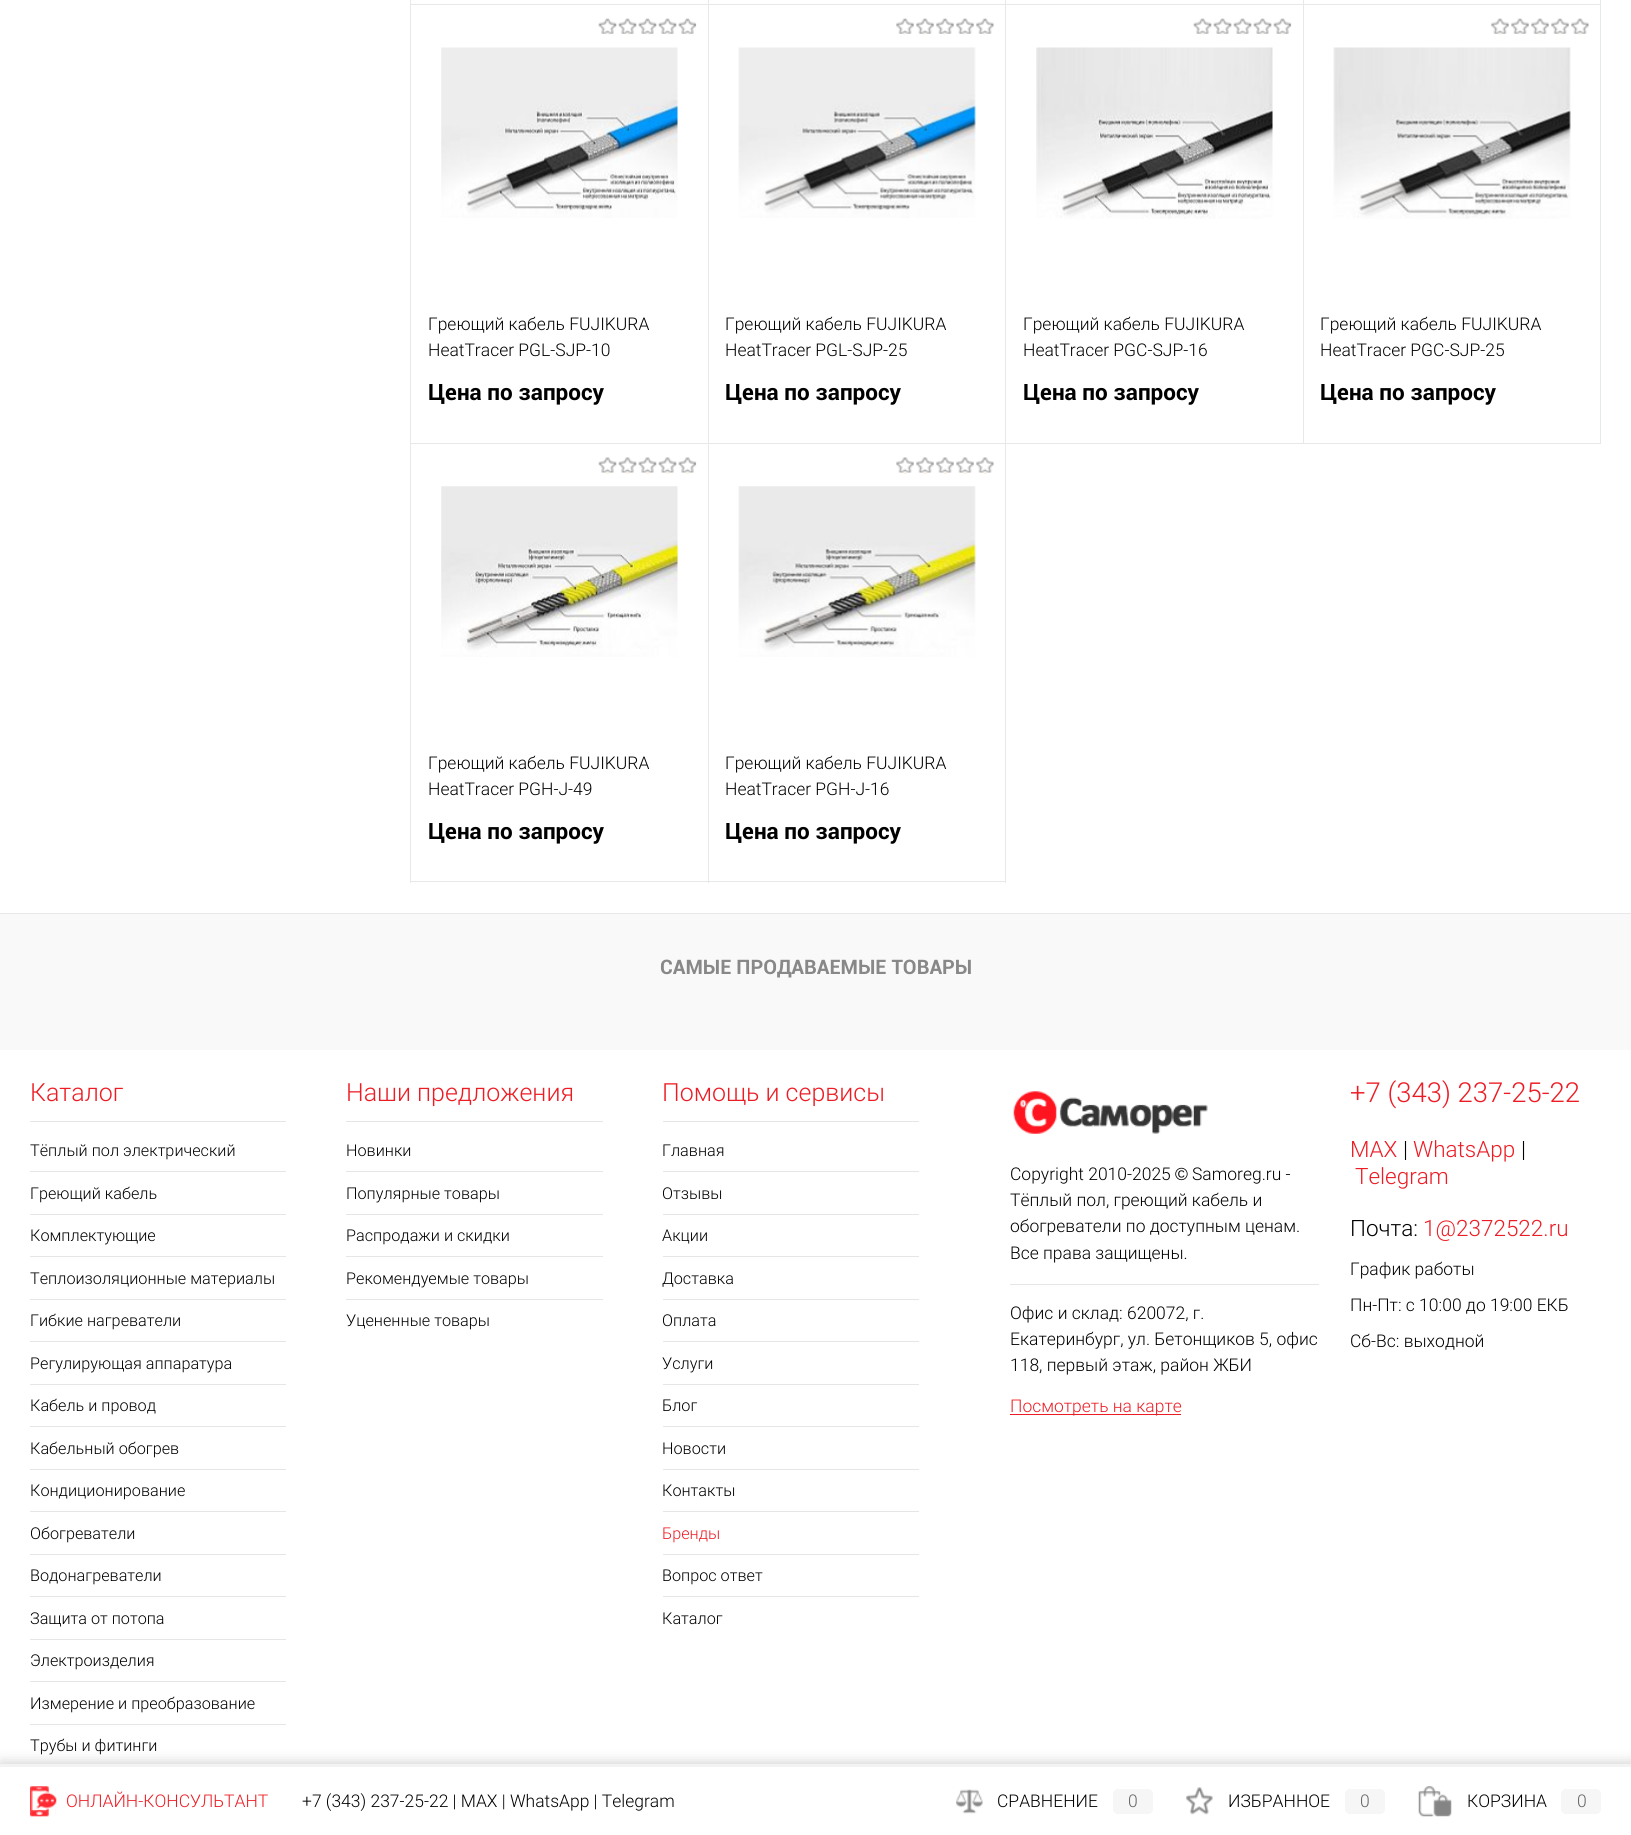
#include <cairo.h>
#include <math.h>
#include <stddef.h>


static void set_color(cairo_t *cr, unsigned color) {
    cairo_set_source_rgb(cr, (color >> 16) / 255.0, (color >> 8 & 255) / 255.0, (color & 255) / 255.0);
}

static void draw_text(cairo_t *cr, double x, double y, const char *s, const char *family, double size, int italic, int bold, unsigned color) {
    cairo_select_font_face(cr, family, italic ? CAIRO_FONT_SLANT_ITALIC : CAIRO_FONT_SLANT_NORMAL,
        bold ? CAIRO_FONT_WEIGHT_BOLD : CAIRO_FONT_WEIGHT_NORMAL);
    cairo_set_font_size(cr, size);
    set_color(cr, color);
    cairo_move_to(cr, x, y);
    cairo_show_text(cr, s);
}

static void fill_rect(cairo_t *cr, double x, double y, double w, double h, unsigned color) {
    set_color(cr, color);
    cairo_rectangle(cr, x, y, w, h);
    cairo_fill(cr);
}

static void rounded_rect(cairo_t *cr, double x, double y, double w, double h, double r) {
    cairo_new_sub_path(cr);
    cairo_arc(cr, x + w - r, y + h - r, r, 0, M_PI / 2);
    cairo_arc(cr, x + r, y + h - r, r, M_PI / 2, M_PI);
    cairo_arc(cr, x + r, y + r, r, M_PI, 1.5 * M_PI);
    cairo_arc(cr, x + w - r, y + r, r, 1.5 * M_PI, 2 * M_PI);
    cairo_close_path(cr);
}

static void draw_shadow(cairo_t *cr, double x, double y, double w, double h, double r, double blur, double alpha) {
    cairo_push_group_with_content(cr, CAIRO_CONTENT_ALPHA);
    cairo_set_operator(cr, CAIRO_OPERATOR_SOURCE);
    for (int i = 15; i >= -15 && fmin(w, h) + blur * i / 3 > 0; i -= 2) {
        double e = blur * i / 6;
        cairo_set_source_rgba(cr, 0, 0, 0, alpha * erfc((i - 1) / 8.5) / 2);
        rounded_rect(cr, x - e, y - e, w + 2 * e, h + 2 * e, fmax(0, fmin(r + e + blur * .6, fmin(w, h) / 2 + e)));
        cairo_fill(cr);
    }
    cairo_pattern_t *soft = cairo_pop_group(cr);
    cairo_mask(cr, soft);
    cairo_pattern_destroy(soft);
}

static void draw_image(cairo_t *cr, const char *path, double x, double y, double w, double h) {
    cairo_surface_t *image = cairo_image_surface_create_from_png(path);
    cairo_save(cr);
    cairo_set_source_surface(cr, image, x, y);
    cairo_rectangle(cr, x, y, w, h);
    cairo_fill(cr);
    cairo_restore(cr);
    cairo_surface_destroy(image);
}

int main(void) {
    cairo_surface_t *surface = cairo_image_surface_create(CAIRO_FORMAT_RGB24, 1631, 1835);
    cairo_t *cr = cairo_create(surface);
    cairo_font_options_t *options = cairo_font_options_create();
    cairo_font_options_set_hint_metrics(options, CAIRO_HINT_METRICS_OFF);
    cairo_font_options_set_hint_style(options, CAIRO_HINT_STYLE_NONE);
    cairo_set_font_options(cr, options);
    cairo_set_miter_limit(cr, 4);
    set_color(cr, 0xFFFFFF);
    cairo_paint(cr);
    fill_rect(cr, 410, 0, 1, 883, 0xE7E8EA);
    fill_rect(cr, 708, 0, 1, 883, 0xE7E8EA);
    fill_rect(cr, 411, 4, 298, 1, 0xE7E8EA);
    fill_rect(cr, 1005, 0, 1, 883, 0xE7E8EA);
    fill_rect(cr, 709, 4, 297, 1, 0xE7E8EA);
    fill_rect(cr, 1303, 0, 1, 444, 0xE7E8EA);
    fill_rect(cr, 1006, 4, 298, 1, 0xE7E8EA);
    fill_rect(cr, 1600, 0, 1, 444, 0xE7E8EA);
    fill_rect(cr, 1304, 4, 297, 1, 0xE7E8EA);
    fill_rect(cr, 411, 443, 1190, 1, 0xE7E8EA);
    draw_image(cr, "assets/img1.png", 598, 18, 99, 17);
    draw_image(cr, "assets/img2.png", 441, 47, 237, 171);
    draw_text(cr, 428, 330, "Греющий кабель FUJIKURA", "Roboto Light", 17.5, 0, 0, 0x000000);
    draw_text(cr, 428, 356, "HeatTracer PGL-SJP-10", "Roboto Light", 17.5, 0, 0, 0x000000);
    draw_text(cr, 428, 400, "Цена по запросу", "Roboto", 22.5, 0, 1, 0x000000);
    draw_image(cr, "assets/img3.png", 896, 18, 98, 17);
    draw_image(cr, "assets/img4.png", 738, 47, 238, 171);
    draw_text(cr, 725, 330, "Греющий кабель FUJIKURA", "Roboto Light", 17.5, 0, 0, 0x000000);
    draw_text(cr, 725, 356, "HeatTracer PGL-SJP-25", "Roboto Light", 17.5, 0, 0, 0x000000);
    draw_text(cr, 725, 400, "Цена по запросу", "Roboto", 22.5, 0, 1, 0x000000);
    draw_image(cr, "assets/img5.png", 1193, 18, 99, 17);
    draw_image(cr, "assets/img6.png", 1036, 47, 237, 172);
    draw_text(cr, 1023, 330, "Греющий кабель FUJIKURA", "Roboto Light", 17.5, 0, 0, 0x000000);
    draw_text(cr, 1023, 356, "HeatTracer PGC-SJP-16", "Roboto Light", 17.5, 0, 0, 0x000000);
    draw_text(cr, 1023, 400, "Цена по запросу", "Roboto", 22.5, 0, 1, 0x000000);
    draw_image(cr, "assets/img7.png", 1491, 18, 98, 17);
    draw_image(cr, "assets/img8.png", 1333, 47, 238, 172);
    draw_text(cr, 1320, 330, "Греющий кабель FUJIKURA", "Roboto Light", 17.5, 0, 0, 0x000000);
    draw_text(cr, 1320, 356, "HeatTracer PGC-SJP-25", "Roboto Light", 17.5, 0, 0, 0x000000);
    draw_text(cr, 1320, 400, "Цена по запросу", "Roboto", 22.5, 0, 1, 0x000000);
    fill_rect(cr, 411, 881, 595, 1, 0xE7E8EA);
    draw_image(cr, "assets/img9.png", 598, 457, 99, 17);
    draw_image(cr, "assets/img10.png", 441, 486, 237, 171);
    draw_text(cr, 428, 769, "Греющий кабель FUJIKURA", "Roboto Light", 17.5, 0, 0, 0x000000);
    draw_text(cr, 428, 795, "HeatTracer PGH-J-49", "Roboto Light", 17.5, 0, 0, 0x000000);
    draw_text(cr, 428, 839, "Цена по запросу", "Roboto", 22.5, 0, 1, 0x000000);
    draw_image(cr, "assets/img11.png", 896, 457, 98, 17);
    draw_image(cr, "assets/img12.png", 738, 486, 238, 171);
    draw_text(cr, 725, 769, "Греющий кабель FUJIKURA", "Roboto Light", 17.5, 0, 0, 0x000000);
    draw_text(cr, 725, 795, "HeatTracer PGH-J-16", "Roboto Light", 17.5, 0, 0, 0x000000);
    draw_text(cr, 725, 839, "Цена по запросу", "Roboto", 22.5, 0, 1, 0x000000);
    fill_rect(cr, 0, 914, 1631, 136, 0xF9F9F9);
    fill_rect(cr, 0, 913, 1631, 1, 0xE7E8EA);
    draw_text(cr, 660, 974, "САМЫЕ ПРОДАВАЕМЫЕ ТОВАРЫ", "Roboto", 20, 0, 1, 0x888888);
    fill_rect(cr, 30, 1121, 256, 1, 0xE6E6E6);
    draw_text(cr, 30, 1101, "Каталог", "Roboto Light", 25, 0, 0, 0xED1C24);
    draw_text(cr, 30, 1156, "Тёплый пол электрический", "Roboto Light", 16.25, 0, 0, 0x000000);
    fill_rect(cr, 30, 1171, 256, 1, 0xE6E6E6);
    draw_text(cr, 30, 1199, "Греющий кабель", "Roboto Light", 16.25, 0, 0, 0x000000);
    fill_rect(cr, 30, 1214, 256, 1, 0xE6E6E6);
    draw_text(cr, 30, 1241, "Комплектующие", "Roboto Light", 16.25, 0, 0, 0x000000);
    fill_rect(cr, 30, 1256, 256, 1, 0xE6E6E6);
    draw_text(cr, 30, 1284, "Теплоизоляционные материалы", "Roboto Light", 16.25, 0, 0, 0x000000);
    fill_rect(cr, 30, 1299, 256, 1, 0xE6E6E6);
    draw_text(cr, 30, 1326, "Гибкие нагреватели", "Roboto Light", 16.25, 0, 0, 0x000000);
    fill_rect(cr, 30, 1341, 256, 1, 0xE6E6E6);
    draw_text(cr, 30, 1369, "Регулирующая аппаратура", "Roboto Light", 16.25, 0, 0, 0x000000);
    fill_rect(cr, 30, 1384, 256, 1, 0xE6E6E6);
    draw_text(cr, 30, 1411, "Кабель и провод", "Roboto Light", 16.25, 0, 0, 0x000000);
    fill_rect(cr, 30, 1426, 256, 1, 0xE6E6E6);
    draw_text(cr, 30, 1454, "Кабельный обогрев", "Roboto Light", 16.25, 0, 0, 0x000000);
    fill_rect(cr, 30, 1469, 256, 1, 0xE6E6E6);
    draw_text(cr, 30, 1496, "Кондиционирование", "Roboto Light", 16.25, 0, 0, 0x000000);
    fill_rect(cr, 30, 1511, 256, 1, 0xE6E6E6);
    draw_text(cr, 30, 1539, "Обогреватели", "Roboto Light", 16.25, 0, 0, 0x000000);
    fill_rect(cr, 30, 1554, 256, 1, 0xE6E6E6);
    draw_text(cr, 30, 1581, "Водонагреватели", "Roboto Light", 16.25, 0, 0, 0x000000);
    fill_rect(cr, 30, 1596, 256, 1, 0xE6E6E6);
    draw_text(cr, 30, 1624, "Защита от потопа", "Roboto Light", 16.25, 0, 0, 0x000000);
    fill_rect(cr, 30, 1639, 256, 1, 0xE6E6E6);
    draw_text(cr, 30, 1666, "Электроизделия", "Roboto Light", 16.25, 0, 0, 0x000000);
    fill_rect(cr, 30, 1681, 256, 1, 0xE6E6E6);
    draw_text(cr, 30, 1709, "Измерение и преобразование", "Roboto Light", 16.25, 0, 0, 0x000000);
    fill_rect(cr, 30, 1724, 256, 1, 0xE6E6E6);
    draw_text(cr, 30, 1751, "Трубы и фитинги", "Roboto Light", 16.25, 0, 0, 0x000000);
    fill_rect(cr, 346, 1121, 257, 1, 0xE6E6E6);
    draw_text(cr, 346, 1101, "Наши предложения", "Roboto Light", 25, 0, 0, 0xED1C24);
    draw_text(cr, 346, 1156, "Новинки", "Roboto Light", 16.25, 0, 0, 0x000000);
    fill_rect(cr, 346, 1171, 257, 1, 0xE6E6E6);
    draw_text(cr, 346, 1199, "Популярные товары", "Roboto Light", 16.25, 0, 0, 0x000000);
    fill_rect(cr, 346, 1214, 257, 1, 0xE6E6E6);
    draw_text(cr, 346, 1241, "Распродажи и скидки", "Roboto Light", 16.25, 0, 0, 0x000000);
    fill_rect(cr, 346, 1256, 257, 1, 0xE6E6E6);
    draw_text(cr, 346, 1284, "Рекомендуемые товары", "Roboto Light", 16.25, 0, 0, 0x000000);
    fill_rect(cr, 346, 1299, 257, 1, 0xE6E6E6);
    draw_text(cr, 346, 1326, "Уцененные товары", "Roboto Light", 16.25, 0, 0, 0x000000);
    fill_rect(cr, 663, 1121, 256, 1, 0xE6E6E6);
    draw_text(cr, 662, 1101, "Помощь и сервисы", "Roboto Light", 25, 0, 0, 0xED1C24);
    draw_text(cr, 662, 1156, "Главная", "Roboto Light", 16.25, 0, 0, 0x000000);
    fill_rect(cr, 663, 1171, 256, 1, 0xE6E6E6);
    draw_text(cr, 662, 1199, "Отзывы", "Roboto Light", 16.25, 0, 0, 0x000000);
    fill_rect(cr, 663, 1214, 256, 1, 0xE6E6E6);
    draw_text(cr, 662, 1241, "Акции", "Roboto Light", 16.25, 0, 0, 0x000000);
    fill_rect(cr, 663, 1256, 256, 1, 0xE6E6E6);
    draw_text(cr, 662, 1284, "Доставка", "Roboto Light", 16.25, 0, 0, 0x000000);
    fill_rect(cr, 663, 1299, 256, 1, 0xE6E6E6);
    draw_text(cr, 662, 1326, "Оплата", "Roboto Light", 16.25, 0, 0, 0x000000);
    fill_rect(cr, 663, 1341, 256, 1, 0xE6E6E6);
    draw_text(cr, 662, 1369, "Услуги", "Roboto Light", 16.25, 0, 0, 0x000000);
    fill_rect(cr, 663, 1384, 256, 1, 0xE6E6E6);
    draw_text(cr, 662, 1411, "Блог", "Roboto Light", 16.25, 0, 0, 0x000000);
    fill_rect(cr, 663, 1426, 256, 1, 0xE6E6E6);
    draw_text(cr, 662, 1454, "Новости", "Roboto Light", 16.25, 0, 0, 0x000000);
    fill_rect(cr, 663, 1469, 256, 1, 0xE6E6E6);
    draw_text(cr, 662, 1496, "Контакты", "Roboto Light", 16.25, 0, 0, 0x000000);
    fill_rect(cr, 663, 1511, 256, 1, 0xE6E6E6);
    draw_text(cr, 662, 1539, "Бренды", "Roboto Light", 16.25, 0, 0, 0xED1C24);
    fill_rect(cr, 663, 1554, 256, 1, 0xE6E6E6);
    draw_text(cr, 662, 1581, "Вопрос ответ", "Roboto Light", 16.25, 0, 0, 0x000000);
    fill_rect(cr, 663, 1596, 256, 1, 0xE6E6E6);
    draw_text(cr, 662, 1624, "Каталог", "Roboto Light", 16.25, 0, 0, 0x000000);
    draw_image(cr, "assets/img13.png", 1013, 1091, 195, 43);
    draw_text(cr, 1010, 1180, "Copyright 2010-2025", "Roboto Light", 17.5, 0, 0, 0x000000);
    draw_text(cr, 1175, 1180, "©", "Liberation Sans", 17.5, 0, 0, 0x000000);
    draw_text(cr, 1192, 1180, "Samoreg.ru -", "Roboto Light", 17.5, 0, 0, 0x000000);
    draw_text(cr, 1010, 1206, "Тёплый пол, греющий кабель и", "Roboto Light", 17.5, 0, 0, 0x000000);
    draw_text(cr, 1010, 1232, "обогреватели по доступным ценам.", "Roboto Light", 17.5, 0, 0, 0x000000);
    draw_text(cr, 1010, 1259, "Все права защищены.", "Roboto Light", 17.5, 0, 0, 0x000000);
    fill_rect(cr, 1010, 1284, 309, 1, 0xE6E6E6);
    draw_text(cr, 1010, 1319, "Офис и склад: 620072, г.", "Roboto Light", 17.5, 0, 0, 0x000000);
    draw_text(cr, 1010, 1345, "Екатеринбург, ул. Бетонщиков 5, офис", "Roboto Light", 17.5, 0, 0, 0x000000);
    draw_text(cr, 1010, 1371, "118, первый этаж, район ЖБИ", "Roboto Light", 17.5, 0, 0, 0x000000);
    fill_rect(cr, 1010, 1414, 171, 1, 0xED1C24);
    draw_text(cr, 1010, 1412, "Посмотреть на карте", "Roboto Light", 17.5, 0, 0, 0xED1C24);
    draw_text(cr, 1350, 1102, "+7 (343) 237-25-22", "Roboto Light", 27.5, 0, 0, 0xED1C24);
    draw_text(cr, 1350, 1157, "MAX", "Roboto Light", 22.5, 0, 0, 0xED1C24);
    draw_text(cr, 1403, 1157, "|", "Roboto Light", 22.5, 0, 0, 0x000000);
    draw_text(cr, 1413, 1157, "WhatsApp", "Roboto Light", 22.5, 0, 0, 0xED1C24);
    draw_text(cr, 1521, 1157, "|", "Roboto Light", 22.5, 0, 0, 0x000000);
    draw_text(cr, 1355, 1184, "Telegram", "Roboto Light", 22.5, 0, 0, 0xED1C24);
    draw_text(cr, 1350, 1236, "Почта:", "Roboto Light", 22.5, 0, 0, 0x000000);
    draw_text(cr, 1423, 1236, "1@2372522.ru", "Roboto Light", 22.5, 0, 0, 0xED1C24);
    draw_text(cr, 1350, 1275, "График работы", "Roboto Light", 17.5, 0, 0, 0x000000);
    draw_text(cr, 1350, 1311, "Пн-Пт: с 10:00 до 19:00 ЕКБ", "Roboto Light", 17.5, 0, 0, 0x000000);
    draw_text(cr, 1350, 1347, "Сб-Вс: выходной", "Roboto Light", 17.5, 0, 0, 0x000000);
    set_color(cr, 0x000000);
    draw_shadow(cr, 1, 1765, 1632, 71, 0, 7.5, 0.25);
    fill_rect(cr, 0, 1767, 1631, 68, 0xFFFFFF);
    fill_rect(cr, 0, 1764, 1631, 3, 0xF3F3F3);
    draw_image(cr, "assets/img14.png", 30, 1786, 27, 31);
    draw_text(cr, 66, 1807, "ОНЛАЙН-КОНСУЛЬТАНТ", "Roboto Light", 17.5, 0, 0, 0xED1C24);
    draw_text(cr, 302, 1807, "+7 (343) 237-25-22 | MAX | WhatsApp | Telegram", "Roboto Light", 17.5, 0, 0, 0x000000);
    draw_image(cr, "assets/img15.png", 956, 1789, 27, 25);
    draw_text(cr, 997, 1807, "СРАВНЕНИЕ", "Roboto Light", 17.5, 0, 0, 0x000000);
    set_color(cr, 0xF6F6F6);
    rounded_rect(cr, 1113, 1789, 40, 25, 5);
    cairo_fill(cr);
    draw_text(cr, 1128, 1807, "0", "Roboto Light", 17.5, 0, 0, 0x666666);
    draw_image(cr, "assets/img16.png", 1186, 1787, 27, 28);
    draw_text(cr, 1228, 1807, "ИЗБРАННОЕ", "Roboto Light", 17.5, 0, 0, 0x000000);
    set_color(cr, 0xF6F6F6);
    rounded_rect(cr, 1345, 1789, 40, 25, 5);
    cairo_fill(cr);
    draw_text(cr, 1360, 1807, "0", "Roboto Light", 17.5, 0, 0, 0x666666);
    draw_image(cr, "assets/img17.png", 1418, 1786, 34, 31);
    draw_text(cr, 1467, 1807, "КОРЗИНА", "Roboto Light", 17.5, 0, 0, 0x000000);
    set_color(cr, 0xF6F6F6);
    rounded_rect(cr, 1561, 1789, 40, 25, 5);
    cairo_fill(cr);
    draw_text(cr, 1577, 1807, "0", "Roboto Light", 17.5, 0, 0, 0x666666);
    cairo_surface_write_to_png(surface, "output.png");
    cairo_font_options_destroy(options);
    cairo_destroy(cr);
    cairo_surface_destroy(surface);
    return 0;
}
